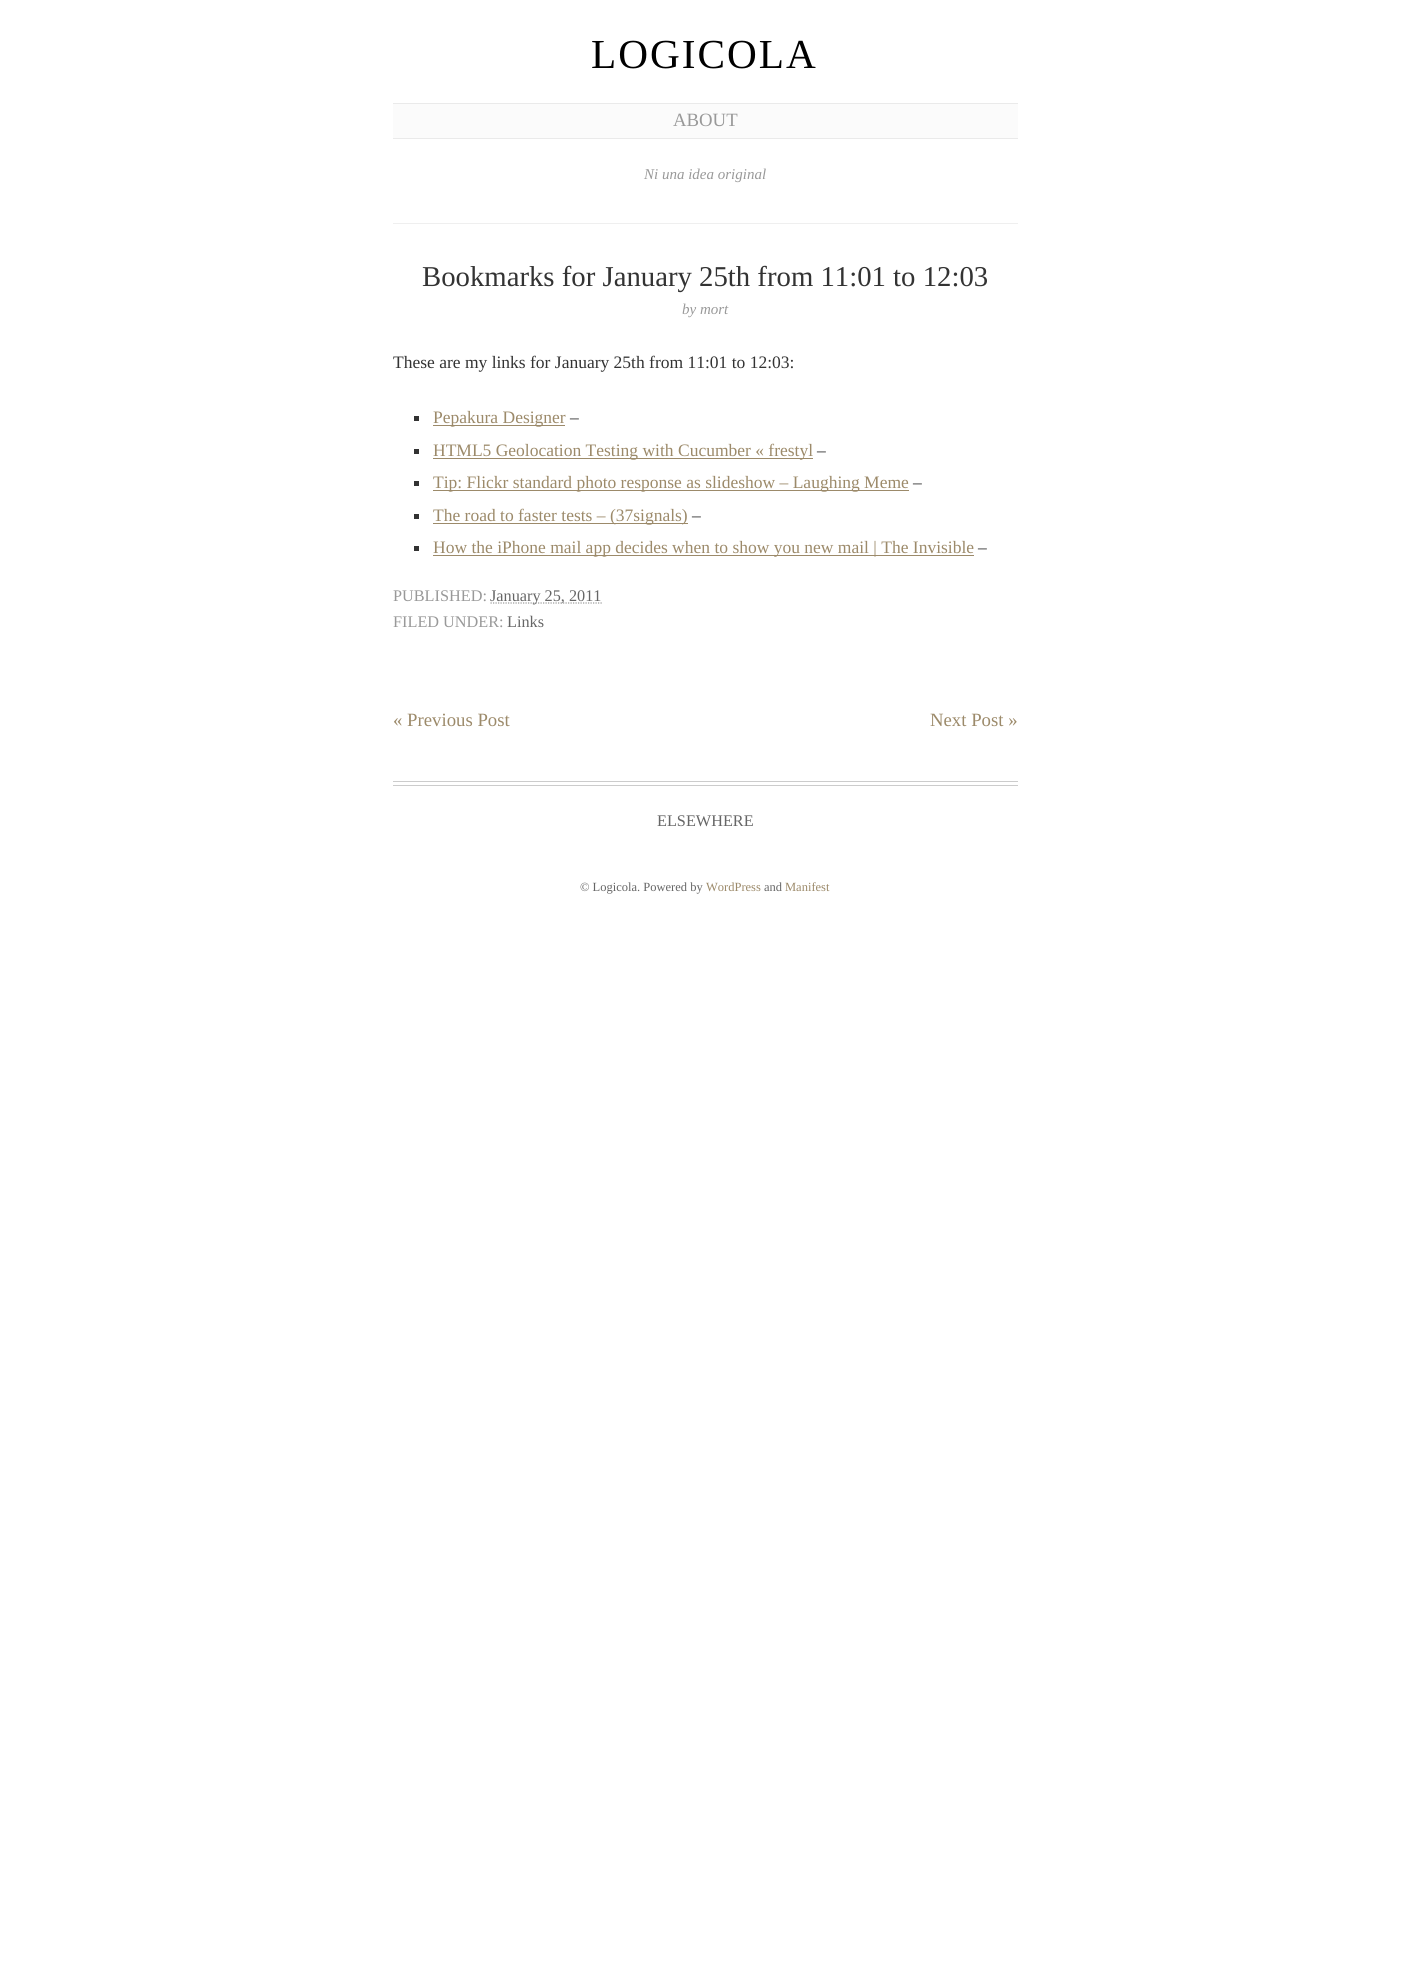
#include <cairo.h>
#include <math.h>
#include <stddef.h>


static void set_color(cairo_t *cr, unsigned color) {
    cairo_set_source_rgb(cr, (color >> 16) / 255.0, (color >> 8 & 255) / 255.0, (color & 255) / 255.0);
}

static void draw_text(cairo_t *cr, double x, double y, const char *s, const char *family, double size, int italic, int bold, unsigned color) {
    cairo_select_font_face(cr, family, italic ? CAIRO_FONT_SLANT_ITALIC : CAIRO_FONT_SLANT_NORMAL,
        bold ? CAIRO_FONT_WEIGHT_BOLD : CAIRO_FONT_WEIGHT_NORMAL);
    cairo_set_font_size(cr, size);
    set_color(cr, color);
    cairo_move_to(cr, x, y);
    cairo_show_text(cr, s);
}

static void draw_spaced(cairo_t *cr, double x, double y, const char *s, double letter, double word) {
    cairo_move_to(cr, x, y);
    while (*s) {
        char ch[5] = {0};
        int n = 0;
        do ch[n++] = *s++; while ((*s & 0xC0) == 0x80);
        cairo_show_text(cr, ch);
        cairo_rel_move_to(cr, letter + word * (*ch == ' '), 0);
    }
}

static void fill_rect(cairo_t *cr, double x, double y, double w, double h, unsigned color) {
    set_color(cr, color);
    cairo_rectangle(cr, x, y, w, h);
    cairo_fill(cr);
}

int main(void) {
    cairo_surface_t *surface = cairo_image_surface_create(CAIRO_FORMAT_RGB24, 1410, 1964);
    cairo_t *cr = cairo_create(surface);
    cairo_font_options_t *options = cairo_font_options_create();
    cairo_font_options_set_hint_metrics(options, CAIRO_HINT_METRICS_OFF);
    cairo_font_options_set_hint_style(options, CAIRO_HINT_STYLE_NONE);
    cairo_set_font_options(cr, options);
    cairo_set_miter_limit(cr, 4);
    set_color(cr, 0xFFFFFF);
    cairo_paint(cr);
    cairo_select_font_face(cr, "Liberation Serif", CAIRO_FONT_SLANT_NORMAL, CAIRO_FONT_WEIGHT_NORMAL);
    cairo_set_font_size(cr, 41.25);
    set_color(cr, 0x000000);
    draw_spaced(cr, 591, 68, "LOGICOLA", 2, 0);
    fill_rect(cr, 393, 104, 625, 34, 0xFBFBFB);
    fill_rect(cr, 393, 103, 625, 1, 0xEAEAEA);
    fill_rect(cr, 393, 138, 625, 1, 0xEAEAEA);
    draw_text(cr, 673, 126, "ABOUT", "Liberation Serif", 18.75, 0, 0, 0x999999);
    draw_text(cr, 644, 179, "Ni una idea original", "Liberation Serif", 15, 1, 0, 0x999999);
    fill_rect(cr, 393, 223, 625, 1, 0xEFEFEF);
    draw_text(cr, 422, 286, "Bookmarks for January 25th from 11:01 to 12:03", "Liberation Serif", 28.75, 0, 0, 0x333333);
    draw_text(cr, 682, 314, "by mort", "Liberation Serif", 15, 1, 0, 0x999999);
    draw_text(cr, 393, 368, "These are my links for January 25th from 11:01 to 12:03:", "Liberation Serif", 17.5, 0, 0, 0x333333);
    fill_rect(cr, 414, 416, 5, 5, 0x333333);
    fill_rect(cr, 433, 425, 132, 1, 0x9C8A6A);
    draw_text(cr, 433, 423, "Pepakura Designer", "Liberation Serif", 17.5, 0, 0, 0x9C8A6A);
    draw_text(cr, 570, 423, "–", "Liberation Serif", 17.5, 0, 0, 0x333333);
    fill_rect(cr, 414, 449, 5, 5, 0x333333);
    fill_rect(cr, 433, 458, 380, 1, 0x9C8A6A);
    draw_text(cr, 433, 456, "HTML5 Geolocation Testing with Cucumber « frestyl", "Liberation Serif", 17.5, 0, 0, 0x9C8A6A);
    draw_text(cr, 817, 456, "–", "Liberation Serif", 17.5, 0, 0, 0x333333);
    fill_rect(cr, 414, 481, 5, 5, 0x333333);
    fill_rect(cr, 433, 490, 476, 1, 0x9C8A6A);
    draw_text(cr, 433, 488, "Tip: Flickr standard photo response as slideshow – Laughing Meme", "Liberation Serif", 17.5, 0, 0, 0x9C8A6A);
    draw_text(cr, 913, 488, "–", "Liberation Serif", 17.5, 0, 0, 0x333333);
    fill_rect(cr, 414, 514, 5, 5, 0x333333);
    fill_rect(cr, 433, 523, 255, 1, 0x9C8A6A);
    draw_text(cr, 433, 521, "The road to faster tests – (37signals)", "Liberation Serif", 17.5, 0, 0, 0x9C8A6A);
    draw_text(cr, 692, 521, "–", "Liberation Serif", 17.5, 0, 0, 0x333333);
    fill_rect(cr, 414, 546, 5, 5, 0x333333);
    fill_rect(cr, 433, 555, 541, 1, 0x9C8A6A);
    draw_text(cr, 433, 553, "How the iPhone mail app decides when to show you new mail | The Invisible", "Liberation Serif", 17.5, 0, 0, 0x9C8A6A);
    draw_text(cr, 978, 553, "–", "Liberation Serif", 17.5, 0, 0, 0x333333);
    draw_text(cr, 393, 601, "PUBLISHED:", "Liberation Serif", 16.25, 0, 0, 0x999999);
    cairo_new_path(cr);
    cairo_move_to(cr, 490.5, 603);
    cairo_line_to(cr, 602, 603);
    cairo_set_line_width(cr, 1.2);
    cairo_set_dash(cr, (double[]){1.25, 1.25}, 2, 0);
    cairo_stroke(cr);
    draw_text(cr, 490, 601, "January 25, 2011", "Liberation Serif", 16.25, 0, 0, 0x666666);
    draw_text(cr, 393, 627, "FILED UNDER:", "Liberation Serif", 16.25, 0, 0, 0x999999);
    draw_text(cr, 507, 627, "Links", "Liberation Serif", 16.25, 0, 0, 0x666666);
    draw_text(cr, 393, 726, "« Previous Post", "Liberation Serif", 18.75, 0, 0, 0x9C8A6A);
    draw_text(cr, 930, 726, "Next Post »", "Liberation Serif", 18.75, 0, 0, 0x9C8A6A);
    fill_rect(cr, 393, 781, 625, 1, 0xCCCCCC);
    fill_rect(cr, 393, 785, 625, 1, 0xCCCCCC);
    draw_text(cr, 657, 826, "ELSEWHERE", "Liberation Serif", 16.25, 0, 0, 0x666666);
    draw_text(cr, 580, 891, "© Logicola. Powered by", "Liberation Serif", 12.5, 0, 0, 0x666666);
    draw_text(cr, 706, 891, "WordPress", "Liberation Serif", 12.5, 0, 0, 0x9C8A6A);
    draw_text(cr, 764, 891, "and", "Liberation Serif", 12.5, 0, 0, 0x666666);
    draw_text(cr, 785, 891, "Manifest", "Liberation Serif", 12.5, 0, 0, 0x9C8A6A);
    cairo_surface_write_to_png(surface, "output.png");
    cairo_font_options_destroy(options);
    cairo_destroy(cr);
    cairo_surface_destroy(surface);
    return 0;
}
